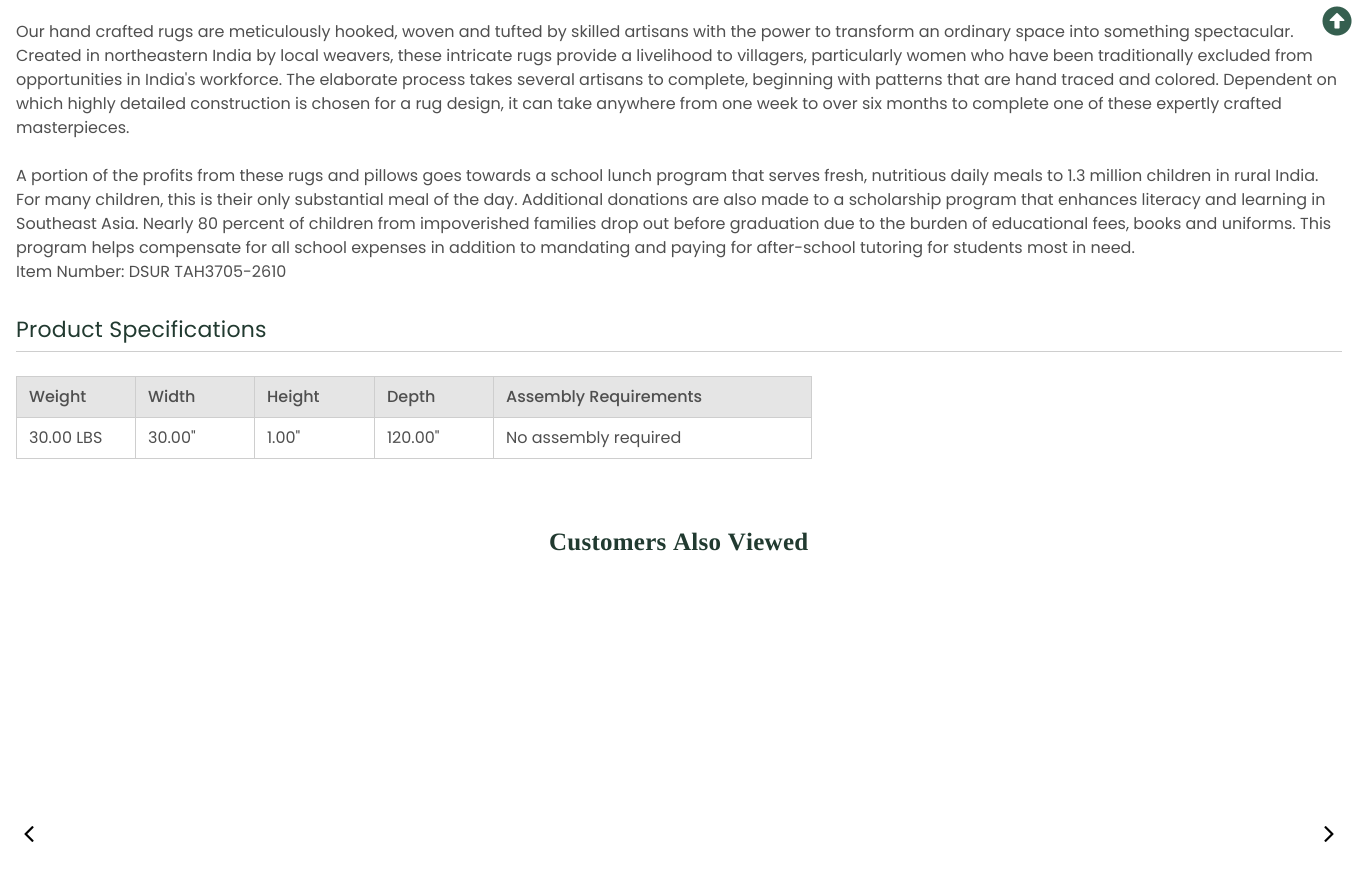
#include <cairo.h>
#include <math.h>
#include <stddef.h>


static void set_color(cairo_t *cr, unsigned color) {
    cairo_set_source_rgb(cr, (color >> 16) / 255.0, (color >> 8 & 255) / 255.0, (color & 255) / 255.0);
}

static void draw_text(cairo_t *cr, double x, double y, const char *s, const char *family, double size, int italic, int bold, unsigned color) {
    cairo_select_font_face(cr, family, italic ? CAIRO_FONT_SLANT_ITALIC : CAIRO_FONT_SLANT_NORMAL,
        bold ? CAIRO_FONT_WEIGHT_BOLD : CAIRO_FONT_WEIGHT_NORMAL);
    cairo_set_font_size(cr, size);
    set_color(cr, color);
    cairo_move_to(cr, x, y);
    cairo_show_text(cr, s);
}

static void draw_spaced(cairo_t *cr, double x, double y, const char *s, double letter, double word) {
    cairo_move_to(cr, x, y);
    while (*s) {
        char ch[5] = {0};
        int n = 0;
        do ch[n++] = *s++; while ((*s & 0xC0) == 0x80);
        cairo_show_text(cr, ch);
        cairo_rel_move_to(cr, letter + word * (*ch == ' '), 0);
    }
}

static void fill_rect(cairo_t *cr, double x, double y, double w, double h, unsigned color) {
    set_color(cr, color);
    cairo_rectangle(cr, x, y, w, h);
    cairo_fill(cr);
}

static void draw_image(cairo_t *cr, const char *path, double x, double y, double w, double h) {
    cairo_surface_t *image = cairo_image_surface_create_from_png(path);
    cairo_save(cr);
    cairo_set_source_surface(cr, image, x, y);
    cairo_rectangle(cr, x, y, w, h);
    cairo_fill(cr);
    cairo_restore(cr);
    cairo_surface_destroy(image);
}

int main(void) {
    cairo_surface_t *surface = cairo_image_surface_create(CAIRO_FORMAT_RGB24, 1358, 878);
    cairo_t *cr = cairo_create(surface);
    cairo_font_options_t *options = cairo_font_options_create();
    cairo_font_options_set_hint_metrics(options, CAIRO_HINT_METRICS_OFF);
    cairo_font_options_set_hint_style(options, CAIRO_HINT_STYLE_NONE);
    cairo_set_font_options(cr, options);
    cairo_set_miter_limit(cr, 4);
    set_color(cr, 0xFFFFFF);
    cairo_paint(cr);
    draw_image(cr, "assets/img1.png", 1322, 6, 30, 30);
    draw_text(cr, 16, 37, "Our hand crafted rugs are meticulously hooked, woven and tufted by skilled artisans with the power to transform an ordinary space into something spectacular.", "Poppins", 16, 0, 0, 0x4F4F4F);
    draw_text(cr, 16, 61, "Created in northeastern India by local weavers, these intricate rugs provide a livelihood to villagers, particularly women who have been traditionally excluded from", "Poppins", 16, 0, 0, 0x4F4F4F);
    draw_text(cr, 16, 85, "opportunities in India's workforce. The elaborate process takes several artisans to complete, beginning with patterns that are hand traced and colored. Dependent on", "Poppins", 16, 0, 0, 0x4F4F4F);
    draw_text(cr, 16, 109, "which highly detailed construction is chosen for a rug design, it can take anywhere from one week to over six months to complete one of these expertly crafted", "Poppins", 16, 0, 0, 0x4F4F4F);
    draw_text(cr, 16, 133, "masterpieces.", "Poppins", 16, 0, 0, 0x4F4F4F);
    draw_text(cr, 16, 181, "A portion of the profits from these rugs and pillows goes towards a school lunch program that serves fresh, nutritious daily meals to 1.3 million children in rural India.", "Poppins", 16, 0, 0, 0x4F4F4F);
    draw_text(cr, 16, 205, "For many children, this is their only substantial meal of the day. Additional donations are also made to a scholarship program that enhances literacy and learning in", "Poppins", 16, 0, 0, 0x4F4F4F);
    draw_text(cr, 16, 229, "Southeast Asia. Nearly 80 percent of children from impoverished families drop out before graduation due to the burden of educational fees, books and uniforms. This", "Poppins", 16, 0, 0, 0x4F4F4F);
    draw_text(cr, 16, 253, "program helps compensate for all school expenses in addition to mandating and paying for after-school tutoring for students most in need.", "Poppins", 16, 0, 0, 0x4F4F4F);
    draw_text(cr, 16, 277, "Item Number: DSUR TAH3705-2610", "Poppins", 16, 0, 0, 0x4F4F4F);
    fill_rect(cr, 16, 351, 1326, 1, 0xCECECE);
    cairo_set_font_size(cr, 22);
    set_color(cr, 0x213A30);
    draw_spaced(cr, 16, 337, "Product Specifications", 0.25, 0);
    fill_rect(cr, 16, 376, 796, 1, 0xCECECE);
    fill_rect(cr, 811, 376, 1, 83, 0xCECECE);
    fill_rect(cr, 16, 458, 796, 1, 0xCECECE);
    fill_rect(cr, 16, 376, 1, 83, 0xCECECE);
    fill_rect(cr, 17, 377, 794, 40, 0xE5E5E5);
    fill_rect(cr, 493, 417, 1, 42, 0xCECECE);
    fill_rect(cr, 493, 417, 319, 1, 0xCECECE);
    fill_rect(cr, 493, 376, 1, 42, 0xCECECE);
    fill_rect(cr, 374, 417, 1, 42, 0xCECECE);
    fill_rect(cr, 374, 417, 120, 1, 0xCECECE);
    fill_rect(cr, 374, 376, 1, 42, 0xCECECE);
    fill_rect(cr, 254, 417, 1, 42, 0xCECECE);
    fill_rect(cr, 254, 417, 121, 1, 0xCECECE);
    fill_rect(cr, 254, 376, 1, 42, 0xCECECE);
    fill_rect(cr, 135, 417, 1, 42, 0xCECECE);
    fill_rect(cr, 135, 417, 120, 1, 0xCECECE);
    fill_rect(cr, 135, 376, 1, 42, 0xCECECE);
    fill_rect(cr, 16, 417, 120, 1, 0xCECECE);
    draw_text(cr, 29, 402, "Weight", "Poppins Medium", 16, 0, 0, 0x4F4F4F);
    draw_text(cr, 148, 402, "Width", "Poppins Medium", 16, 0, 0, 0x4F4F4F);
    draw_text(cr, 267, 402, "Height", "Poppins Medium", 16, 0, 0, 0x4F4F4F);
    draw_text(cr, 387, 402, "Depth", "Poppins Medium", 16, 0, 0, 0x4F4F4F);
    draw_text(cr, 506, 402, "Assembly Requirements", "Poppins Medium", 16, 0, 0, 0x4F4F4F);
    draw_text(cr, 29, 443, "30.00 LBS", "Poppins", 16, 0, 0, 0x4F4F4F);
    draw_text(cr, 148, 443, "30.00\"", "Poppins", 16, 0, 0, 0x4F4F4F);
    draw_text(cr, 267, 443, "1.00\"", "Poppins", 16, 0, 0, 0x4F4F4F);
    draw_text(cr, 387, 443, "120.00\"", "Poppins", 16, 0, 0, 0x4F4F4F);
    draw_text(cr, 506, 443, "No assembly required", "Poppins", 16, 0, 0, 0x4F4F4F);
    cairo_select_font_face(cr, "Liberation Serif", CAIRO_FONT_SLANT_NORMAL, CAIRO_FONT_WEIGHT_BOLD);
    cairo_set_font_size(cr, 25);
    set_color(cr, 0x213A30);
    draw_spaced(cr, 549, 550, "Customers Also Viewed", 0.25, 0);
    draw_image(cr, "assets/img2.png", 24, 826, 10, 16);
    draw_image(cr, "assets/img3.png", 1324, 826, 10, 16);
    cairo_surface_write_to_png(surface, "output.png");
    cairo_font_options_destroy(options);
    cairo_destroy(cr);
    cairo_surface_destroy(surface);
    return 0;
}
